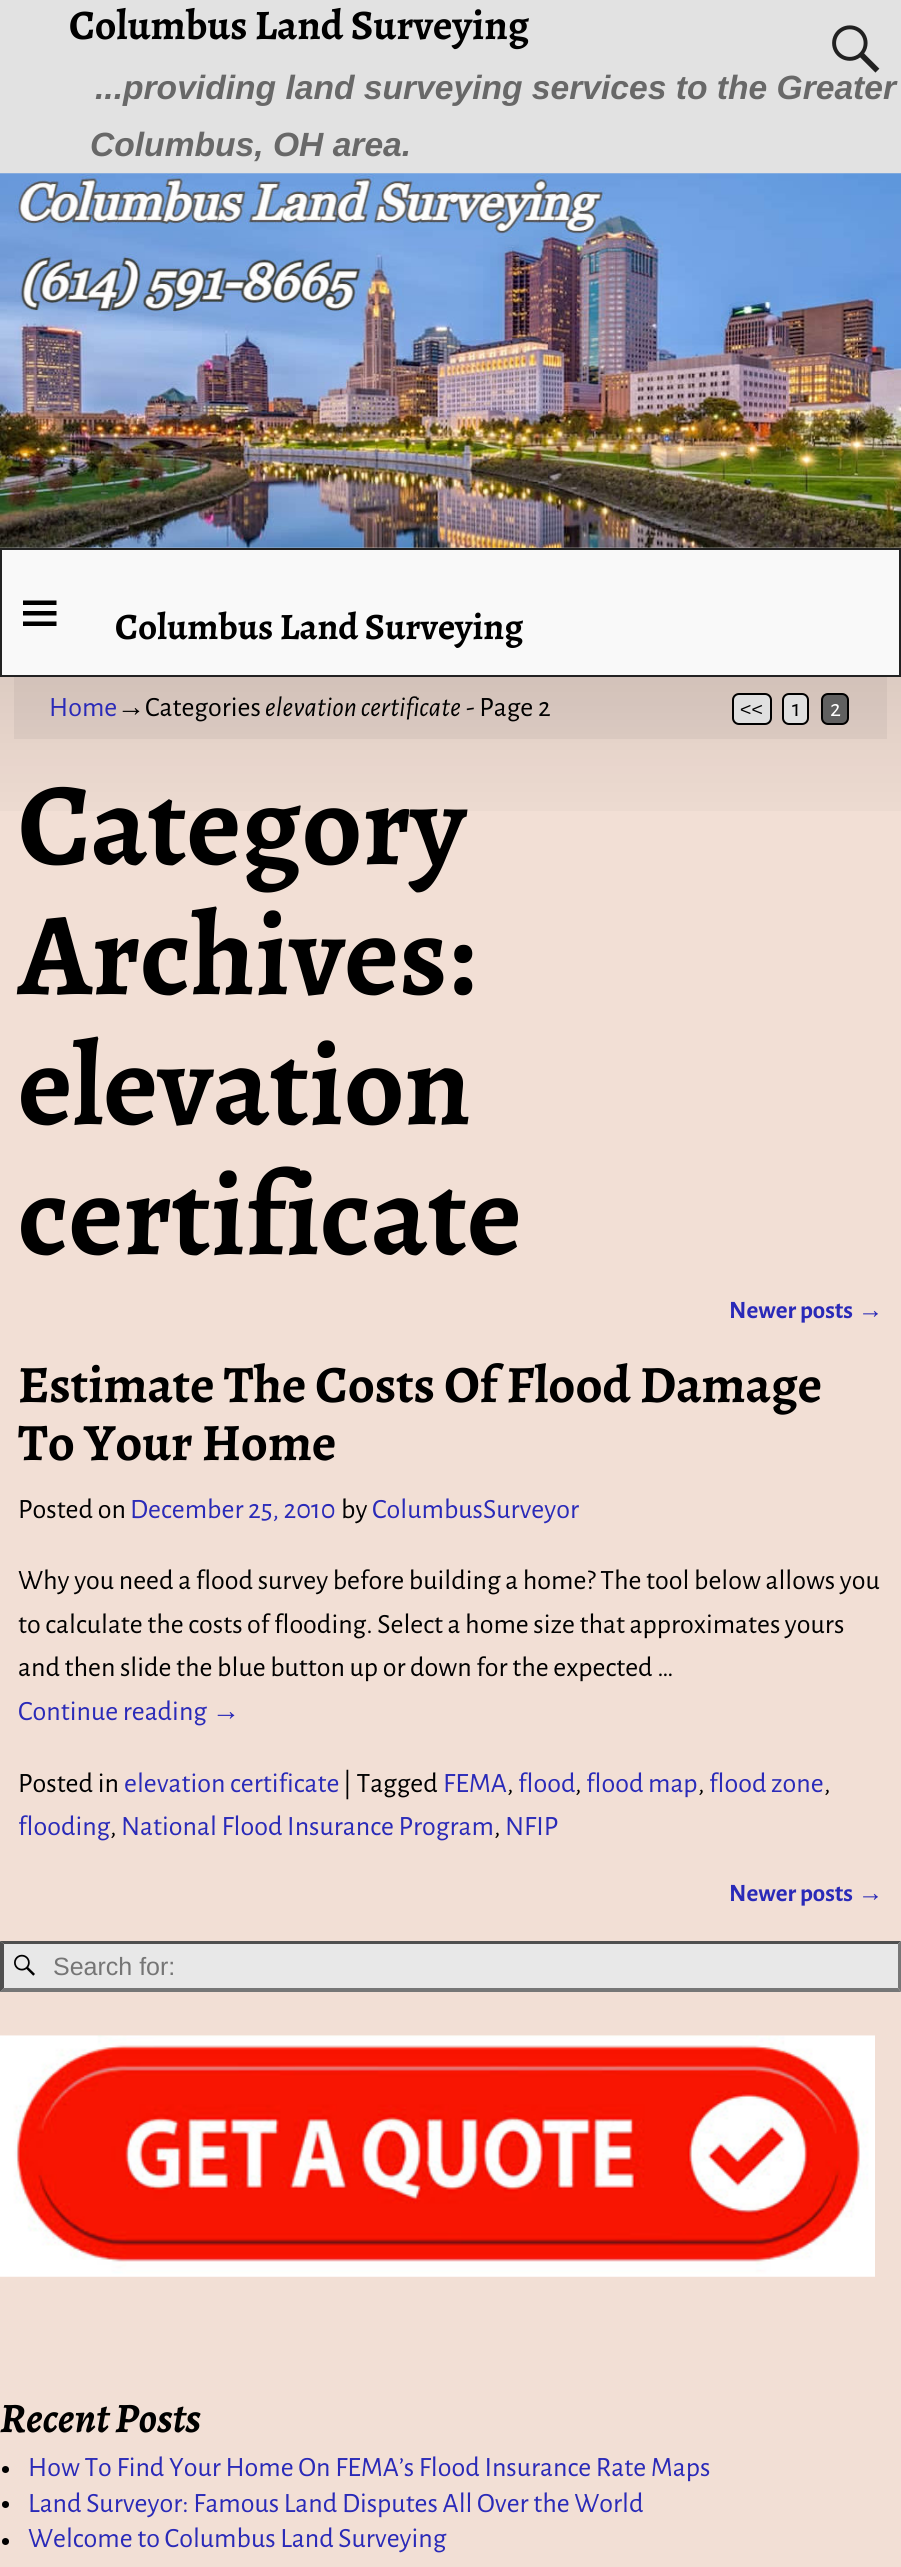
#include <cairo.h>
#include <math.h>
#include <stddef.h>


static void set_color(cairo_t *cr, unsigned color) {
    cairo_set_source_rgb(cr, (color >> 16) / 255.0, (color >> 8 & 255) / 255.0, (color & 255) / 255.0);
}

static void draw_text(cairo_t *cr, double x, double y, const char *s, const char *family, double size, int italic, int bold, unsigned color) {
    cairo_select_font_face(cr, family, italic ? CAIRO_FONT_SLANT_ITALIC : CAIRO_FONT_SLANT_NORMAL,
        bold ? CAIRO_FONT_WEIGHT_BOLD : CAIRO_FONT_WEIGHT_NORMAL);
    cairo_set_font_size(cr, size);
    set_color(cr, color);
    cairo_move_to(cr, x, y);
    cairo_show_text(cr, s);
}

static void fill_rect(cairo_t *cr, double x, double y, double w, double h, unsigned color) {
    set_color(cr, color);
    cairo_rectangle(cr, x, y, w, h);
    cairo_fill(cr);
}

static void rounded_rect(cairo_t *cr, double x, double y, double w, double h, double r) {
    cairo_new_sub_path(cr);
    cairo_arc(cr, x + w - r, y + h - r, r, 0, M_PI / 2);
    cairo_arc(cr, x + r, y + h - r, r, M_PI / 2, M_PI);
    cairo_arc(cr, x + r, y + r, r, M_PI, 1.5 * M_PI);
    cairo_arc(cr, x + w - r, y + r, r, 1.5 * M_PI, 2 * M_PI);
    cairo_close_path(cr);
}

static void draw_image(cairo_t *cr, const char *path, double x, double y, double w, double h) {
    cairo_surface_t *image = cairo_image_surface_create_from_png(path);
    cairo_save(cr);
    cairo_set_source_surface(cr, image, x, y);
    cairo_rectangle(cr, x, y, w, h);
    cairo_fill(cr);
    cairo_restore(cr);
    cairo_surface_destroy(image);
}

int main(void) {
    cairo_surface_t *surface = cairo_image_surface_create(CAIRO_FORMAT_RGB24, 901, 2567);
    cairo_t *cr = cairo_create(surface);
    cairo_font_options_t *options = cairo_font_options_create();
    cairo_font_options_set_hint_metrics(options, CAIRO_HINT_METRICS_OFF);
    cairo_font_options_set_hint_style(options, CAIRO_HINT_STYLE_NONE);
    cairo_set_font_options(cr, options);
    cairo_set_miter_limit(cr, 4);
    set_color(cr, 0xF2DFD5);
    cairo_paint(cr);
    draw_image(cr, "assets/img1.png", 0, 677, 901, 134);
    fill_rect(cr, 0, 0, 901, 548, 0xE2E2E2);
    draw_text(cr, 69, 39, "Columbus Land Surveying", "Alegreya", 42, 0, 1, 0x000000);
    draw_image(cr, "assets/img2.png", 832, 25, 48, 48);
    draw_text(cr, 95, 99, "...providing land surveying services to the Greater", "Liberation Sans", 33.6, 1, 1, 0x686868);
    draw_text(cr, 90, 156, "Columbus, OH area.", "Liberation Sans", 33.6, 1, 1, 0x686868);
    draw_image(cr, "assets/img3.png", 0, 173, 901, 375);
    set_color(cr, 0xF9F9F9);
    cairo_rectangle(cr, 1, 549, 899, 127);
    cairo_fill_preserve(cr);
    set_color(cr, 0x222222);
    cairo_stroke(cr);
    set_color(cr, 0x000000);
    cairo_new_path(cr);
    cairo_move_to(cr, 23, 626);
    cairo_line_to(cr, 23, 621.5);
    cairo_line_to(cr, 56.5, 621.5);
    cairo_line_to(cr, 56.5, 626);
    cairo_close_path(cr);
    cairo_move_to(cr, 23, 600.5);
    cairo_line_to(cr, 56.5, 600.5);
    cairo_line_to(cr, 56.5, 605);
    cairo_line_to(cr, 23, 605);
    cairo_close_path(cr);
    cairo_move_to(cr, 23, 615.5);
    cairo_line_to(cr, 23, 611);
    cairo_line_to(cr, 56.5, 611);
    cairo_line_to(cr, 56.5, 615.5);
    cairo_close_path(cr);
    cairo_fill(cr);
    draw_text(cr, 115, 639, "Columbus Land Surveying", "Alegreya", 37.25, 0, 1, 0x000000);
    cairo_set_source_rgba(cr, 0, 0, 0, 0.05);
    cairo_rectangle(cr, 14, 677, 873, 62);
    cairo_fill(cr);
    draw_text(cr, 49, 716, "Home", "Alegreya Sans", 28, 0, 0, 0x2A2AB8);
    draw_text(cr, 117, 716, "→", "Liberation Sans", 28, 0, 0, 0x000000);
    draw_text(cr, 145, 716, "Categories", "Alegreya Sans", 28, 0, 0, 0x000000);
    draw_text(cr, 265, 716, "elevation certificate", "Alegreya Sans", 28, 1, 0, 0x000000);
    draw_text(cr, 466, 716, "- Page 2", "Alegreya Sans", 28, 0, 0, 0x000000);
    set_color(cr, 0xE0E0E0);
    rounded_rect(cr, 733, 694, 38, 30, 6);
    cairo_fill_preserve(cr);
    set_color(cr, 0x000000);
    cairo_stroke(cr);
    draw_text(cr, 740, 716, "<<", "Alegreya Sans", 24, 0, 0, 0x000000);
    set_color(cr, 0xE0E0E0);
    rounded_rect(cr, 783, 694, 25, 30, 6);
    cairo_fill_preserve(cr);
    set_color(cr, 0x000000);
    cairo_stroke(cr);
    draw_text(cr, 792, 716, "1", "Alegreya Sans", 24, 0, 0, 0x000000);
    set_color(cr, 0x606060);
    rounded_rect(cr, 822, 694, 26, 30, 6);
    cairo_fill_preserve(cr);
    set_color(cr, 0x000000);
    cairo_stroke(cr);
    draw_text(cr, 830, 716, "2", "Alegreya Sans", 24, 0, 0, 0xFFFFFF);
    draw_text(cr, 18, 864, "Category", "Alegreya", 118, 0, 1, 0x000000);
    draw_text(cr, 18, 994, "Archives:", "Alegreya", 118, 0, 1, 0x000000);
    draw_text(cr, 18, 1124, "elevation", "Alegreya", 118, 0, 1, 0x000000);
    draw_text(cr, 18, 1254, "certificate", "Alegreya", 118, 0, 1, 0x000000);
    draw_text(cr, 729, 1318, "Newer posts", "Alegreya Sans", 25, 0, 1, 0x2A2AB8);
    draw_text(cr, 858, 1318, "→", "Liberation Sans", 25, 0, 0, 0x2A2AB8);
    draw_text(cr, 18, 1402, "Estimate The Costs Of Flood Damage", "Alegreya", 52.5, 0, 1, 0x000000);
    draw_text(cr, 18, 1460, "To Your Home", "Alegreya", 52.5, 0, 1, 0x000000);
    draw_text(cr, 18, 1518, "Posted on", "Alegreya Sans", 28, 0, 0, 0x000000);
    draw_text(cr, 130, 1518, "December 25, 2010", "Alegreya Sans", 28, 0, 0, 0x2A2AB8);
    draw_text(cr, 341, 1518, "by", "Alegreya Sans", 28, 0, 0, 0x000000);
    draw_text(cr, 372, 1518, "ColumbusSurveyor", "Alegreya Sans", 28, 0, 0, 0x2A2AB8);
    draw_text(cr, 18, 1589, "Why you need a flood survey before building a home? The tool below allows you", "Alegreya Sans", 28, 0, 0, 0x000000);
    draw_text(cr, 18, 1633, "to calculate the costs of flooding. Select a home size that approximates yours", "Alegreya Sans", 28, 0, 0, 0x000000);
    draw_text(cr, 18, 1676, "and then slide the blue button up or down for the expected …", "Alegreya Sans", 28, 0, 0, 0x000000);
    draw_text(cr, 18, 1720, "Continue reading", "Alegreya Sans", 28, 0, 0, 0x2A2AB8);
    draw_text(cr, 212, 1720, "→", "Liberation Sans", 28, 0, 0, 0x2A2AB8);
    draw_text(cr, 18, 1792, "Posted in", "Alegreya Sans", 28, 0, 0, 0x000000);
    draw_text(cr, 124, 1792, "elevation certificate", "Alegreya Sans", 28, 0, 0, 0x2A2AB8);
    draw_text(cr, 343, 1792, "| Tagged", "Alegreya Sans", 28, 0, 0, 0x000000);
    draw_text(cr, 443, 1792, "FEMA", "Alegreya Sans", 28, 0, 0, 0x2A2AB8);
    draw_text(cr, 507, 1792, ",", "Alegreya Sans", 28, 0, 0, 0x000000);
    draw_text(cr, 518, 1792, "flood", "Alegreya Sans", 28, 0, 0, 0x2A2AB8);
    draw_text(cr, 575, 1792, ",", "Alegreya Sans", 28, 0, 0, 0x000000);
    draw_text(cr, 586, 1792, "flood map", "Alegreya Sans", 28, 0, 0, 0x2A2AB8);
    draw_text(cr, 698, 1792, ",", "Alegreya Sans", 28, 0, 0, 0x000000);
    draw_text(cr, 709, 1792, "flood zone", "Alegreya Sans", 28, 0, 0, 0x2A2AB8);
    draw_text(cr, 824, 1792, ",", "Alegreya Sans", 28, 0, 0, 0x000000);
    draw_text(cr, 18, 1835, "flooding", "Alegreya Sans", 28, 0, 0, 0x2A2AB8);
    draw_text(cr, 110, 1835, ",", "Alegreya Sans", 28, 0, 0, 0x000000);
    draw_text(cr, 121, 1835, "National Flood Insurance Program", "Alegreya Sans", 28, 0, 0, 0x2A2AB8);
    draw_text(cr, 494, 1835, ",", "Alegreya Sans", 28, 0, 0, 0x000000);
    draw_text(cr, 505, 1835, "NFIP", "Alegreya Sans", 28, 0, 0, 0x2A2AB8);
    draw_text(cr, 729, 1901, "Newer posts", "Alegreya Sans", 25, 0, 1, 0x2A2AB8);
    draw_text(cr, 858, 1901, "→", "Liberation Sans", 25, 0, 0, 0x2A2AB8);
    fill_rect(cr, 0, 1941, 901, 51, 0xE8E8E8);
    draw_image(cr, "assets/img4.png", 14, 1954, 21, 22);
    set_color(cr, 0x4F4F4F);
    cairo_new_path(cr);
    cairo_move_to(cr, 0, 1941);
    cairo_line_to(cr, 901, 1941);
    cairo_line_to(cr, 898, 1944);
    cairo_line_to(cr, 4, 1944);
    cairo_close_path(cr);
    cairo_fill(cr);
    set_color(cr, 0x767676);
    cairo_new_path(cr);
    cairo_move_to(cr, 901, 1941);
    cairo_line_to(cr, 901, 1992);
    cairo_line_to(cr, 898, 1988);
    cairo_line_to(cr, 898, 1944);
    cairo_close_path(cr);
    cairo_fill(cr);
    cairo_new_path(cr);
    cairo_move_to(cr, 901, 1992);
    cairo_line_to(cr, 0, 1992);
    cairo_line_to(cr, 4, 1988);
    cairo_line_to(cr, 898, 1988);
    cairo_close_path(cr);
    cairo_fill(cr);
    set_color(cr, 0x4F4F4F);
    cairo_new_path(cr);
    cairo_move_to(cr, 0, 1992);
    cairo_line_to(cr, 0, 1941);
    cairo_line_to(cr, 4, 1944);
    cairo_line_to(cr, 4, 1988);
    cairo_close_path(cr);
    cairo_fill(cr);
    draw_text(cr, 53, 1975, "Search for:", "Liberation Sans", 25, 0, 0, 0x757575);
    draw_image(cr, "assets/img5.png", 0, 2035, 875, 242);
    draw_text(cr, 0, 2432, "Recent Posts", "Alegreya", 42, 1, 1, 0x000000);
    cairo_new_path(cr);
    cairo_arc(cr, 5.5, 2469.5, 3.5, 0, 2 * M_PI);
    cairo_fill(cr);
    draw_text(cr, 28, 2476, "How To Find Your Home On FEMA’s Flood Insurance Rate Maps", "Alegreya Sans", 28, 0, 0, 0x2A2AB8);
    set_color(cr, 0x000000);
    cairo_new_path(cr);
    cairo_arc(cr, 5.5, 2504.5, 3.5, 0, 2 * M_PI);
    cairo_fill(cr);
    draw_text(cr, 28, 2512, "Land Surveyor: Famous Land Disputes All Over the World", "Alegreya Sans", 28, 0, 0, 0x2A2AB8);
    set_color(cr, 0x000000);
    cairo_new_path(cr);
    cairo_arc(cr, 5.5, 2541.5, 3.5, 0, 2 * M_PI);
    cairo_fill(cr);
    draw_text(cr, 28, 2547, "Welcome to Columbus Land Surveying", "Alegreya Sans", 28, 0, 0, 0x2A2AB8);
    cairo_surface_write_to_png(surface, "output.png");
    cairo_font_options_destroy(options);
    cairo_destroy(cr);
    cairo_surface_destroy(surface);
    return 0;
}
